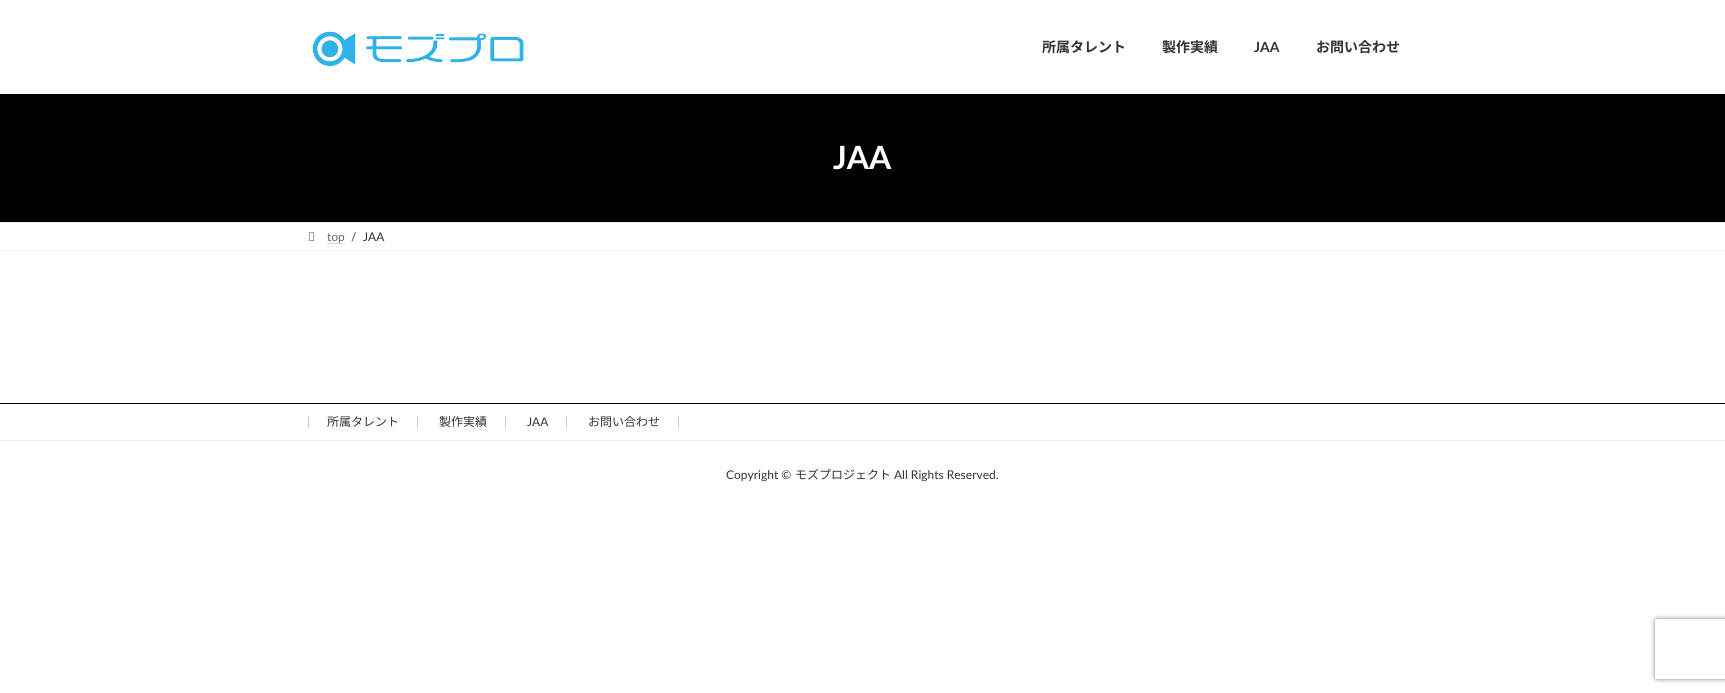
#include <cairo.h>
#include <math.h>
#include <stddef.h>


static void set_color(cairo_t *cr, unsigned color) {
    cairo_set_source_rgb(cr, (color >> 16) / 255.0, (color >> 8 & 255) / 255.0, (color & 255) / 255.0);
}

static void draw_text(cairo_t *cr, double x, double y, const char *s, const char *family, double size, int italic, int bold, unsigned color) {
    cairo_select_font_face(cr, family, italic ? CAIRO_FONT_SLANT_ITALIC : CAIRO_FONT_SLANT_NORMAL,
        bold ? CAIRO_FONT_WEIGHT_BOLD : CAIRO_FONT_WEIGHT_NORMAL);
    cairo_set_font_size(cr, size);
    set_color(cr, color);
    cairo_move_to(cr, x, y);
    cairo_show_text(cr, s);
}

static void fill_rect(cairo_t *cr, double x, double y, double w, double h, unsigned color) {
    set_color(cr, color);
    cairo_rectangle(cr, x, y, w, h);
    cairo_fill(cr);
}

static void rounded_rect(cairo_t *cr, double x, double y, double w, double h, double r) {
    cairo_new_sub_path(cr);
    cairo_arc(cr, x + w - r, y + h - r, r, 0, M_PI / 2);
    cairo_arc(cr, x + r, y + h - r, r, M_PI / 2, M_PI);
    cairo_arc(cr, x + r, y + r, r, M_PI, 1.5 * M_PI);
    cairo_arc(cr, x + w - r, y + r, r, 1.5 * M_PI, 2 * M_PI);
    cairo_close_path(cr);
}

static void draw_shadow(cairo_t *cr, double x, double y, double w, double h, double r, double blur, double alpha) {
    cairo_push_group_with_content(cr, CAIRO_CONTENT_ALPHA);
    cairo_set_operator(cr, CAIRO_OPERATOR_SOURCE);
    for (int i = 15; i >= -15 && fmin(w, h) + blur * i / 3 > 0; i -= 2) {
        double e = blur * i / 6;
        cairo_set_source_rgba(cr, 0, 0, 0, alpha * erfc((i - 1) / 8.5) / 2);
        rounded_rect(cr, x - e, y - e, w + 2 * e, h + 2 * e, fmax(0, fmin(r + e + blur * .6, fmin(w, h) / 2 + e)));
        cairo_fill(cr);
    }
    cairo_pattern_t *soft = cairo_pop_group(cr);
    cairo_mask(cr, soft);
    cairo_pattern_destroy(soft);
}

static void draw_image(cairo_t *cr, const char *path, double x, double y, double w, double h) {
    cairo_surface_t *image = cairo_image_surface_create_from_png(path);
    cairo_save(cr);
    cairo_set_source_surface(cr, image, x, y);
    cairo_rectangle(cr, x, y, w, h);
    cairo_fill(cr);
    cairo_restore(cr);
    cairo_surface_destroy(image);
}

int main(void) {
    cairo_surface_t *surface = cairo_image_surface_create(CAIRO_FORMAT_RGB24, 1725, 693);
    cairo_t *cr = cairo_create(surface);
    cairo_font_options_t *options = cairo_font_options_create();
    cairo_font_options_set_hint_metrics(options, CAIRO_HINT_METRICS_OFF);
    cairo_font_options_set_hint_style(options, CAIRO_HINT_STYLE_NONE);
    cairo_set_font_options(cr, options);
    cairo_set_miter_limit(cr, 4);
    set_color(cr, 0xFFFFFF);
    cairo_paint(cr);
    draw_image(cr, "assets/img1.png", 312, 31, 212, 36);
    draw_text(cr, 1042, 52, "所属タレント", "Noto Sans JP", 14, 0, 1, 0x333333);
    draw_text(cr, 1162, 52, "製作実績", "Noto Sans JP", 14, 0, 1, 0x333333);
    draw_text(cr, 1254, 52, "JAA", "Lato", 14, 0, 1, 0x333333);
    draw_text(cr, 1316, 52, "お問い合わせ", "Noto Sans JP", 14, 0, 1, 0x333333);
    fill_rect(cr, 0, 94, 1725, 128, 0x000000);
    draw_text(cr, 833, 169, "JAA", "Lato", 32, 0, 1, 0xFFFFFF);
    fill_rect(cr, 0, 222, 1725, 1, 0xF0F0F0);
    fill_rect(cr, 0, 250, 1725, 1, 0xF0F0F0);
    draw_image(cr, "assets/img2.png", 309, 232, 6, 9);
    cairo_new_path(cr);
    cairo_move_to(cr, 327.5, 243.5);
    cairo_line_to(cr, 345, 243.5);
    set_color(cr, 0xB3B3B3);
    cairo_set_line_width(cr, 1);
    cairo_set_dash(cr, (double[]){1, 1}, 2, 0);
    cairo_stroke(cr);
    draw_text(cr, 327, 241, "top", "Lato", 12, 0, 0, 0x666666);
    draw_text(cr, 351, 241, "/", "Lato", 12, 0, 0, 0x333333);
    draw_text(cr, 363, 241, "JAA", "Lato", 12, 0, 0, 0x333333);
    fill_rect(cr, 0, 403, 1725, 1, 0x000000);
    fill_rect(cr, 0, 440, 1725, 1, 0xF0F0F0);
    fill_rect(cr, 417, 416, 1, 12, 0xCCCCCC);
    fill_rect(cr, 308, 416, 1, 12, 0xCCCCCC);
    draw_text(cr, 327, 426, "所属タレント", "Noto Sans JP", 12, 0, 0, 0x333333);
    fill_rect(cr, 505, 416, 1, 12, 0xCCCCCC);
    draw_text(cr, 439, 426, "製作実績", "Noto Sans JP", 12, 0, 0, 0x333333);
    fill_rect(cr, 566, 416, 1, 12, 0xCCCCCC);
    draw_text(cr, 527, 426, "JAA", "Lato", 12, 0, 0, 0x333333);
    fill_rect(cr, 678, 416, 1, 12, 0xCCCCCC);
    draw_text(cr, 588, 426, "お問い合わせ", "Noto Sans JP", 12, 0, 0, 0x333333);
    draw_text(cr, 726, 479, "Copyright ©", "Lato", 12, 0, 0, 0x333333);
    draw_text(cr, 795, 479, "モズプロジェクト", "Noto Sans JP", 12, 0, 0, 0x333333);
    draw_text(cr, 894, 479, "All Rights Reserved.", "Lato", 12, 0, 0, 0x333333);
    cairo_save(cr);
    cairo_set_fill_rule(cr, CAIRO_FILL_RULE_EVEN_ODD);
    cairo_new_path(cr);
    cairo_move_to(cr, 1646, 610);
    cairo_line_to(cr, 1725, 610);
    cairo_line_to(cr, 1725, 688);
    cairo_line_to(cr, 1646, 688);
    cairo_close_path(cr);
    cairo_move_to(cr, 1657, 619);
    cairo_line_to(cr, 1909, 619);
    cairo_curve_to(cr, 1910, 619, 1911, 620, 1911, 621);
    cairo_line_to(cr, 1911, 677);
    cairo_curve_to(cr, 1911, 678, 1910, 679, 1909, 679);
    cairo_line_to(cr, 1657, 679);
    cairo_curve_to(cr, 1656, 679, 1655, 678, 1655, 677);
    cairo_line_to(cr, 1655, 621);
    cairo_curve_to(cr, 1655, 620, 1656, 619, 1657, 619);
    cairo_close_path(cr);
    cairo_clip(cr);
    set_color(cr, 0x808080);
    draw_shadow(cr, 1655, 619, 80, 60, 2, 2.5, 1);
    cairo_restore(cr);
    cairo_surface_write_to_png(surface, "output.png");
    cairo_font_options_destroy(options);
    cairo_destroy(cr);
    cairo_surface_destroy(surface);
    return 0;
}
